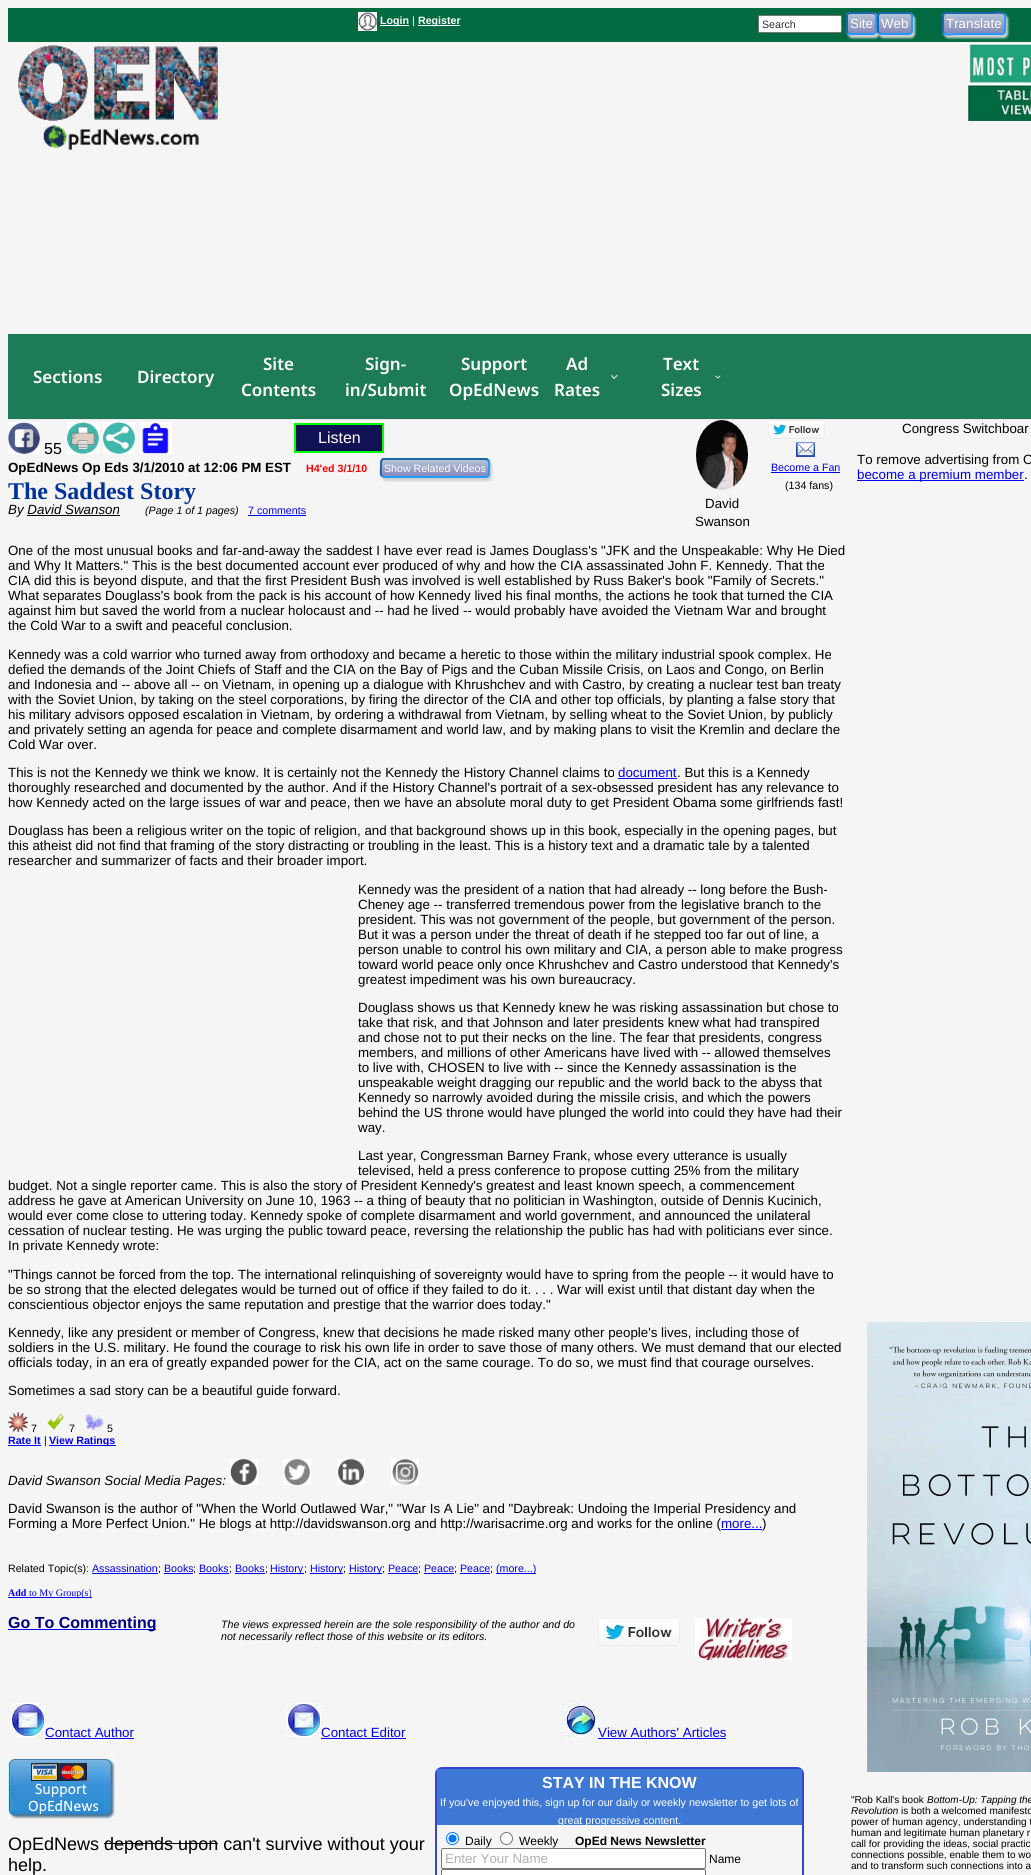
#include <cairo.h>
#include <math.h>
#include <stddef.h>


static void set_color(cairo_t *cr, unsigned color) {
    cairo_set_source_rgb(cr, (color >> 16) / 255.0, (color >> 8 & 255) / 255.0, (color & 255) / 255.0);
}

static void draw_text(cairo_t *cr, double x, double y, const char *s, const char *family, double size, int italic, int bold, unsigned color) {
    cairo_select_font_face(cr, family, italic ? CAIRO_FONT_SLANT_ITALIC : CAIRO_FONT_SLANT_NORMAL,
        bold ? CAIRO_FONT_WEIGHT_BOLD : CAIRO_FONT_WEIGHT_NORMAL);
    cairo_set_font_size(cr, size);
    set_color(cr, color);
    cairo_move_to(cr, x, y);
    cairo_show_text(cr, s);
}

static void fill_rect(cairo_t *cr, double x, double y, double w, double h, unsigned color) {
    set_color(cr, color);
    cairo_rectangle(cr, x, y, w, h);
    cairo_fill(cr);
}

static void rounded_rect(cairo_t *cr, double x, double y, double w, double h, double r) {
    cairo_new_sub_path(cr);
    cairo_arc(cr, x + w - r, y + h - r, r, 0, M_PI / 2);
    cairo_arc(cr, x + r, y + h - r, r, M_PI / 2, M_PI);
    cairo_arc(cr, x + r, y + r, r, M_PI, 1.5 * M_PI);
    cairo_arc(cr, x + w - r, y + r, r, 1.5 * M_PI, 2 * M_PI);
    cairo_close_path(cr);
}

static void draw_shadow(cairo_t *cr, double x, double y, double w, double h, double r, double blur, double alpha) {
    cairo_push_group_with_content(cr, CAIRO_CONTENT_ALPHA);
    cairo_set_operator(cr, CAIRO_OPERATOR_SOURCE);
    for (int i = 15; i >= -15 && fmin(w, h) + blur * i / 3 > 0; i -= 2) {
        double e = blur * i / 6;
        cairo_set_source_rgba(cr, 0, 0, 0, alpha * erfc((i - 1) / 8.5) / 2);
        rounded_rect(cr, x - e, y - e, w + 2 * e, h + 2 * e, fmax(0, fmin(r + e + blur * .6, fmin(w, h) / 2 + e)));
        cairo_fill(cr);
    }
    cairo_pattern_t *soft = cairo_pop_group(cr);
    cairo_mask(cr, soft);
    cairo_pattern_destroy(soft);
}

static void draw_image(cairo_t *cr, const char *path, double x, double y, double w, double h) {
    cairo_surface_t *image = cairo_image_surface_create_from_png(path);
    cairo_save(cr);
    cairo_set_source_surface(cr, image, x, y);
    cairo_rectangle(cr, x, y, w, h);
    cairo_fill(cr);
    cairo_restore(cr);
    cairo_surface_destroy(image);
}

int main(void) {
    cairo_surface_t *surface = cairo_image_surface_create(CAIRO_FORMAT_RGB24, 1031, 1875);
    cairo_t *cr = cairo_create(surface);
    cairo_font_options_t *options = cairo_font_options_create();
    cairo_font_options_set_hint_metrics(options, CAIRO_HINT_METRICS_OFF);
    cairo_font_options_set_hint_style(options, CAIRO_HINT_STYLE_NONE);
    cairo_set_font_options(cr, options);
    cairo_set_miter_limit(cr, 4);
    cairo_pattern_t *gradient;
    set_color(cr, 0xF5F5F5);
    cairo_paint(cr);
    fill_rect(cr, 8, 8, 1023, 34, 0x016A41);
    draw_image(cr, "assets/img1.png", 358, 12, 19, 19);
    fill_rect(cr, 380, 25, 29, 1, 0xFFFFFF);
    draw_text(cr, 380, 24, "Login", "Liberation Sans", 10.65, 0, 1, 0xFFFFFF);
    draw_text(cr, 412, 24, "|", "Liberation Sans", 10.65, 0, 0, 0xFFFFFF);
    fill_rect(cr, 418, 25, 42, 1, 0xFFFFFF);
    draw_text(cr, 418, 24, "Register", "Liberation Sans", 10.65, 0, 1, 0xFFFFFF);
    rounded_rect(cr, 758.5, 15.5, 83, 17, 1.5);
    cairo_fill_preserve(cr);
    set_color(cr, 0x767676);
    cairo_set_line_width(cr, 1);
    cairo_stroke(cr);
    draw_text(cr, 762, 28, "Search", "Liberation Sans", 10.65, 0, 0, 0x333333);
    set_color(cr, 0xD1D1D1);
    draw_shadow(cr, 848, 15, 31, 23, 4, 1, 1);
    cairo_save(cr);
    rounded_rect(cr, 846, 12, 31, 23, 4);
    cairo_clip(cr);
    gradient = cairo_pattern_create_linear(862, -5, 862, 14);
    cairo_pattern_add_color_stop_rgba(gradient, 0, 0.702, 0.769, 0.839, 1);
    cairo_pattern_add_color_stop_rgba(gradient, 1, 0.529, 0.537, 0.729, 1);
    cairo_set_source(cr, gradient);
    cairo_pattern_destroy(gradient);
    cairo_rectangle(cr, 846, 12, 31, 2);
    cairo_fill(cr);
    gradient = cairo_pattern_create_linear(862, 14, 862, 33);
    cairo_pattern_add_color_stop_rgba(gradient, 0, 0.702, 0.769, 0.839, 1);
    cairo_pattern_add_color_stop_rgba(gradient, 1, 0.529, 0.537, 0.729, 1);
    cairo_set_source(cr, gradient);
    cairo_pattern_destroy(gradient);
    cairo_rectangle(cr, 846, 14, 31, 19);
    cairo_fill(cr);
    gradient = cairo_pattern_create_linear(862, 33, 862, 52);
    cairo_pattern_add_color_stop_rgba(gradient, 0, 0.702, 0.769, 0.839, 1);
    cairo_pattern_add_color_stop_rgba(gradient, 1, 0.529, 0.537, 0.729, 1);
    cairo_set_source(cr, gradient);
    cairo_pattern_destroy(gradient);
    cairo_rectangle(cr, 846, 33, 31, 2);
    cairo_fill(cr);
    cairo_restore(cr);
    cairo_new_path(cr);
    cairo_move_to(cr, 875, 14);
    cairo_curve_to(cr, 876.5, 15, 876, 17, 876, 18.5);
    cairo_line_to(cr, 876, 31.5);
    cairo_curve_to(cr, 875.5, 34.5, 871.5, 34, 869, 34);
    cairo_line_to(cr, 854, 34);
    cairo_curve_to(cr, 852, 34, 849.5, 34.5, 848, 33);
    set_color(cr, 0x2699FF);
    cairo_set_line_width(cr, 2);
    cairo_stroke(cr);
    cairo_new_path(cr);
    cairo_move_to(cr, 848, 33);
    cairo_curve_to(cr, 846.5, 32, 847, 30, 847, 28.5);
    cairo_line_to(cr, 847, 15.5);
    cairo_curve_to(cr, 847.5, 12.5, 851.5, 13, 854, 13);
    cairo_line_to(cr, 869, 13);
    cairo_curve_to(cr, 871, 13, 873.5, 12.5, 875, 14);
    set_color(cr, 0x1966AA);
    cairo_stroke(cr);
    draw_text(cr, 850, 28, "Site", "Liberation Sans", 13.33, 0, 0, 0xFFFFFF);
    set_color(cr, 0xD1D1D1);
    draw_shadow(cr, 879, 15, 36, 23, 4, 1, 1);
    cairo_save(cr);
    rounded_rect(cr, 877, 12, 36, 23, 4);
    cairo_clip(cr);
    gradient = cairo_pattern_create_linear(895, -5, 895, 14);
    cairo_pattern_add_color_stop_rgba(gradient, 0, 0.702, 0.769, 0.839, 1);
    cairo_pattern_add_color_stop_rgba(gradient, 1, 0.529, 0.537, 0.729, 1);
    cairo_set_source(cr, gradient);
    cairo_pattern_destroy(gradient);
    cairo_rectangle(cr, 877, 12, 36, 2);
    cairo_fill(cr);
    gradient = cairo_pattern_create_linear(895, 14, 895, 33);
    cairo_pattern_add_color_stop_rgba(gradient, 0, 0.702, 0.769, 0.839, 1);
    cairo_pattern_add_color_stop_rgba(gradient, 1, 0.529, 0.537, 0.729, 1);
    cairo_set_source(cr, gradient);
    cairo_pattern_destroy(gradient);
    cairo_rectangle(cr, 877, 14, 36, 19);
    cairo_fill(cr);
    gradient = cairo_pattern_create_linear(895, 33, 895, 52);
    cairo_pattern_add_color_stop_rgba(gradient, 0, 0.702, 0.769, 0.839, 1);
    cairo_pattern_add_color_stop_rgba(gradient, 1, 0.529, 0.537, 0.729, 1);
    cairo_set_source(cr, gradient);
    cairo_pattern_destroy(gradient);
    cairo_rectangle(cr, 877, 33, 36, 2);
    cairo_fill(cr);
    cairo_restore(cr);
    cairo_new_path(cr);
    cairo_move_to(cr, 911, 14);
    cairo_curve_to(cr, 911.5, 14.5, 912, 15, 912, 16);
    cairo_line_to(cr, 912, 31);
    cairo_curve_to(cr, 912, 32, 911.5, 32.5, 911, 33);
    cairo_curve_to(cr, 910.5, 33.5, 910, 34, 909, 34);
    cairo_line_to(cr, 881, 34);
    cairo_curve_to(cr, 880, 34, 879.5, 33.5, 879, 33);
    set_color(cr, 0x2699FF);
    cairo_stroke(cr);
    cairo_new_path(cr);
    cairo_move_to(cr, 879, 33);
    cairo_curve_to(cr, 878.5, 32.5, 878, 32, 878, 31);
    cairo_line_to(cr, 878, 16);
    cairo_curve_to(cr, 878, 15, 878.5, 14.5, 879, 14);
    cairo_curve_to(cr, 879.5, 13.5, 880, 13, 881, 13);
    cairo_line_to(cr, 909, 13);
    cairo_curve_to(cr, 910, 13, 910.5, 13.5, 911, 14);
    set_color(cr, 0x1966AA);
    cairo_stroke(cr);
    draw_text(cr, 881, 28, "Web", "Liberation Sans", 13.33, 0, 0, 0xFFFFFF);
    set_color(cr, 0xD1D1D1);
    draw_shadow(cr, 944, 15, 64, 23, 4, 1, 1);
    cairo_save(cr);
    rounded_rect(cr, 942, 12, 64, 23, 4);
    cairo_clip(cr);
    gradient = cairo_pattern_create_linear(974, -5, 974, 14);
    cairo_pattern_add_color_stop_rgba(gradient, 0, 0.702, 0.769, 0.839, 1);
    cairo_pattern_add_color_stop_rgba(gradient, 1, 0.529, 0.537, 0.729, 1);
    cairo_set_source(cr, gradient);
    cairo_pattern_destroy(gradient);
    cairo_rectangle(cr, 942, 12, 64, 2);
    cairo_fill(cr);
    gradient = cairo_pattern_create_linear(974, 14, 974, 33);
    cairo_pattern_add_color_stop_rgba(gradient, 0, 0.702, 0.769, 0.839, 1);
    cairo_pattern_add_color_stop_rgba(gradient, 1, 0.529, 0.537, 0.729, 1);
    cairo_set_source(cr, gradient);
    cairo_pattern_destroy(gradient);
    cairo_rectangle(cr, 942, 14, 64, 19);
    cairo_fill(cr);
    gradient = cairo_pattern_create_linear(974, 33, 974, 52);
    cairo_pattern_add_color_stop_rgba(gradient, 0, 0.702, 0.769, 0.839, 1);
    cairo_pattern_add_color_stop_rgba(gradient, 1, 0.529, 0.537, 0.729, 1);
    cairo_set_source(cr, gradient);
    cairo_pattern_destroy(gradient);
    cairo_rectangle(cr, 942, 33, 64, 2);
    cairo_fill(cr);
    cairo_restore(cr);
    cairo_new_path(cr);
    cairo_move_to(cr, 1004, 14);
    cairo_curve_to(cr, 1006, 16, 1005, 21, 1005, 23.5);
    cairo_curve_to(cr, 1005, 36, 1006, 34, 992.5, 34);
    cairo_line_to(cr, 955.5, 34);
    cairo_curve_to(cr, 954.5, 34, 946, 35.5, 944, 33);
    set_color(cr, 0x2699FF);
    cairo_stroke(cr);
    cairo_new_path(cr);
    cairo_move_to(cr, 944, 33);
    cairo_curve_to(cr, 942, 31, 943, 26, 943, 23.5);
    cairo_curve_to(cr, 943, 11, 942, 13, 955.5, 13);
    cairo_line_to(cr, 992.5, 13);
    cairo_curve_to(cr, 993.5, 13, 1002, 11.5, 1004, 14);
    set_color(cr, 0x1966AA);
    cairo_stroke(cr);
    draw_text(cr, 946, 28, "Translate", "Liberation Sans", 13.33, 0, 0, 0xFFFFFF);
    draw_image(cr, "assets/img2.png", 18, 45, 200, 105);
    draw_image(cr, "assets/img3.png", 968, 44, 63, 77);
    fill_rect(cr, 8, 334, 1023, 85, 0x1E7B57);
    fill_rect(cr, 8, 419, 1023, 1, 0xE5E7EB);
    draw_text(cr, 33, 383, "Sections", "Noto Sans SemiBold", 17, 0, 0, 0xFFFFFF);
    draw_text(cr, 137, 383, "Directory", "Noto Sans SemiBold", 17, 0, 0, 0xFFFFFF);
    draw_text(cr, 263, 370, "Site", "Noto Sans SemiBold", 17, 0, 0, 0xFFFFFF);
    draw_text(cr, 241, 396, "Contents", "Noto Sans SemiBold", 17, 0, 0, 0xFFFFFF);
    draw_text(cr, 365, 370, "Sign-", "Noto Sans SemiBold", 17, 0, 0, 0xFFFFFF);
    draw_text(cr, 345, 396, "in/Submit", "Noto Sans SemiBold", 17, 0, 0, 0xFFFFFF);
    draw_text(cr, 461, 370, "Support", "Noto Sans SemiBold", 17, 0, 0, 0xFFFFFF);
    draw_text(cr, 449, 396, "OpEdNews", "Noto Sans SemiBold", 17, 0, 0, 0xFFFFFF);
    draw_text(cr, 566, 370, "Ad", "Noto Sans SemiBold", 17, 0, 0, 0xFFFFFF);
    cairo_new_path(cr);
    cairo_move_to(cr, 611.5, 375.5);
    cairo_line_to(cr, 614, 378.5);
    cairo_line_to(cr, 617, 375.5);
    cairo_set_line_width(cr, 0.9);
    cairo_set_line_cap(cr, CAIRO_LINE_CAP_ROUND);
    cairo_set_line_join(cr, CAIRO_LINE_JOIN_ROUND);
    cairo_stroke(cr);
    draw_text(cr, 554, 396, "Rates", "Noto Sans SemiBold", 17, 0, 0, 0xFFFFFF);
    draw_text(cr, 663, 370, "Text", "Noto Sans SemiBold", 17, 0, 0, 0xFFFFFF);
    cairo_new_path(cr);
    cairo_move_to(cr, 715.5, 376);
    cairo_line_to(cr, 718, 378);
    cairo_line_to(cr, 720, 376);
    cairo_set_line_width(cr, 0.8);
    cairo_stroke(cr);
    draw_text(cr, 661, 396, "Sizes", "Noto Sans SemiBold", 17, 0, 0, 0xFFFFFF);
    set_color(cr, 0x111254);
    cairo_rectangle(cr, 295, 424, 88, 28);
    cairo_fill_preserve(cr);
    set_color(cr, 0x00FF00);
    cairo_set_line_width(cr, 2);
    cairo_set_line_cap(cr, CAIRO_LINE_CAP_BUTT);
    cairo_set_line_join(cr, CAIRO_LINE_JOIN_MITER);
    cairo_stroke(cr);
    draw_text(cr, 318, 443, "Listen", "Liberation Sans", 16, 0, 0, 0xFFFFFF);
    draw_image(cr, "assets/img4.png", 8, 422, 32, 32);
    draw_text(cr, 44, 454, "55", "Liberation Sans", 16, 0, 0, 0x000000);
    draw_image(cr, "assets/img5.png", 67, 422, 32, 32);
    draw_image(cr, "assets/img6.png", 103, 422, 32, 32);
    draw_image(cr, "assets/img7.png", 140, 422, 32, 32);
    draw_text(cr, 8, 472, "OpEdNews Op Eds 3/1/2010 at 12:06 PM EST", "Liberation Sans", 13.33, 0, 1, 0x000000);
    draw_text(cr, 306, 472, "H4'ed 3/1/10", "Liberation Sans", 10.65, 0, 1, 0xFF0000);
    set_color(cr, 0xD1D1D1);
    draw_shadow(cr, 382, 461, 110, 20, 4, 1, 1);
    cairo_save(cr);
    rounded_rect(cr, 380, 458, 110, 20, 4);
    cairo_clip(cr);
    gradient = cairo_pattern_create_linear(435, 444, 435, 460);
    cairo_pattern_add_color_stop_rgba(gradient, 0, 0.702, 0.769, 0.839, 1);
    cairo_pattern_add_color_stop_rgba(gradient, 1, 0.529, 0.537, 0.729, 1);
    cairo_set_source(cr, gradient);
    cairo_pattern_destroy(gradient);
    cairo_rectangle(cr, 380, 458, 110, 2);
    cairo_fill(cr);
    gradient = cairo_pattern_create_linear(435, 460, 435, 476);
    cairo_pattern_add_color_stop_rgba(gradient, 0, 0.702, 0.769, 0.839, 1);
    cairo_pattern_add_color_stop_rgba(gradient, 1, 0.529, 0.537, 0.729, 1);
    cairo_set_source(cr, gradient);
    cairo_pattern_destroy(gradient);
    cairo_rectangle(cr, 380, 460, 110, 16);
    cairo_fill(cr);
    gradient = cairo_pattern_create_linear(435, 476, 435, 492);
    cairo_pattern_add_color_stop_rgba(gradient, 0, 0.702, 0.769, 0.839, 1);
    cairo_pattern_add_color_stop_rgba(gradient, 1, 0.529, 0.537, 0.729, 1);
    cairo_set_source(cr, gradient);
    cairo_pattern_destroy(gradient);
    cairo_rectangle(cr, 380, 476, 110, 2);
    cairo_fill(cr);
    cairo_restore(cr);
    cairo_new_path(cr);
    cairo_move_to(cr, 488, 460);
    cairo_curve_to(cr, 490, 462, 489, 467.5, 489, 470);
    cairo_curve_to(cr, 489, 472.5, 489.5, 477, 486, 477);
    cairo_line_to(cr, 384, 477);
    cairo_line_to(cr, 382, 476);
    set_color(cr, 0x2699FF);
    cairo_stroke(cr);
    cairo_new_path(cr);
    cairo_move_to(cr, 382, 476);
    cairo_curve_to(cr, 380, 474, 381, 468.5, 381, 466);
    cairo_curve_to(cr, 381, 463.5, 380.5, 459, 384, 459);
    cairo_line_to(cr, 486, 459);
    cairo_line_to(cr, 488, 460);
    set_color(cr, 0x1966AA);
    cairo_stroke(cr);
    draw_text(cr, 384, 472, "Show Related Videos", "Liberation Sans", 10.65, 0, 0, 0xFFFFFF);
    draw_text(cr, 8, 499, "The Saddest Story", "Liberation Serif", 24, 0, 1, 0x003399);
    draw_text(cr, 8, 514, "By David Swanson", "Liberation Sans", 13.33, 1, 0, 0x000000);
    fill_rect(cr, 27, 515, 93, 1, 0x000000);
    draw_text(cr, 145, 514, "(Page 1 of 1 pages)", "Liberation Sans", 10.65, 1, 0, 0x000000);
    draw_text(cr, 248, 514, "7 comments", "Liberation Sans", 10.65, 0, 0, 0x0000EE);
    fill_rect(cr, 248, 515, 58, 1, 0x0000EE);
    draw_image(cr, "assets/img8.png", 768, 420, 57, 19);
    draw_image(cr, "assets/img9.png", 796, 442, 19, 15);
    draw_text(cr, 771, 471, "Become a Fan", "Liberation Sans", 10.65, 0, 0, 0x0000EE);
    fill_rect(cr, 771, 472, 69, 1, 0x0000EE);
    draw_text(cr, 785, 489, "(134 fans)", "Liberation Sans", 10.65, 0, 0, 0x000000);
    draw_image(cr, "assets/img10.png", 696, 420, 52, 70);
    draw_text(cr, 705, 508, "David", "Liberation Sans", 13.33, 0, 0, 0x000000);
    draw_text(cr, 695, 526, "Swanson", "Liberation Sans", 13.33, 0, 0, 0x000000);
    draw_text(cr, 8, 555, "One of the most unusual books and far-and-away the saddest I have ever read is James Douglass's \"JFK and the Unspeakable: Why He Died", "Liberation Sans", 13.33, 0, 0, 0x000000);
    draw_text(cr, 8, 570, "and Why It Matters.\" This is the best documented account ever produced of why and how the CIA assassinated John F. Kennedy. That the", "Liberation Sans", 13.33, 0, 0, 0x000000);
    draw_text(cr, 8, 585, "CIA did this is beyond dispute, and that the first President Bush was involved is well established by Russ Baker's book \"Family of Secrets.\"", "Liberation Sans", 13.33, 0, 0, 0x000000);
    draw_text(cr, 8, 600, "What separates Douglass's book from the pack is his account of how Kennedy lived his final months, the actions he took that turned the CIA", "Liberation Sans", 13.33, 0, 0, 0x000000);
    draw_text(cr, 8, 615, "against him but saved the world from a nuclear holocaust and -- had he lived -- would probably have avoided the Vietnam War and brought", "Liberation Sans", 13.33, 0, 0, 0x000000);
    draw_text(cr, 8, 630, "the Cold War to a swift and peaceful conclusion.", "Liberation Sans", 13.33, 0, 0, 0x000000);
    draw_text(cr, 8, 659, "Kennedy was a cold warrior who turned away from orthodoxy and became a heretic to those within the military industrial spook complex. He", "Liberation Sans", 13.33, 0, 0, 0x000000);
    draw_text(cr, 8, 674, "defied the demands of the Joint Chiefs of Staff and the CIA on the Bay of Pigs and the Cuban Missile Crisis, on Laos and Congo, on Berlin", "Liberation Sans", 13.33, 0, 0, 0x000000);
    draw_text(cr, 8, 689, "and Indonesia and -- above all -- on Vietnam, in opening up a dialogue with Khrushchev and with Castro, by creating a nuclear test ban treaty", "Liberation Sans", 13.33, 0, 0, 0x000000);
    draw_text(cr, 8, 704, "with the Soviet Union, by taking on the steel corporations, by firing the director of the CIA and other top officials, by planting a false story that", "Liberation Sans", 13.33, 0, 0, 0x000000);
    draw_text(cr, 8, 719, "his military advisors opposed escalation in Vietnam, by ordering a withdrawal from Vietnam, by selling wheat to the Soviet Union, by publicly", "Liberation Sans", 13.33, 0, 0, 0x000000);
    draw_text(cr, 8, 734, "and privately setting an agenda for peace and complete disarmament and world law, and by making plans to visit the Kremlin and declare the", "Liberation Sans", 13.33, 0, 0, 0x000000);
    draw_text(cr, 8, 749, "Cold War over.", "Liberation Sans", 13.33, 0, 0, 0x000000);
    draw_text(cr, 8, 777, "This is not the Kennedy we think we know. It is certainly not the Kennedy the History Channel claims to", "Liberation Sans", 13.33, 0, 0, 0x000000);
    draw_text(cr, 618, 777, "document", "Liberation Sans", 13.33, 0, 0, 0x0000EE);
    fill_rect(cr, 618, 778, 59, 1, 0x0000EE);
    draw_text(cr, 677, 777, ". But this is a Kennedy", "Liberation Sans", 13.33, 0, 0, 0x000000);
    draw_text(cr, 8, 792, "thoroughly researched and documented by the author. And if the History Channel's portrait of a sex-obsessed president has any relevance to", "Liberation Sans", 13.33, 0, 0, 0x000000);
    draw_text(cr, 8, 807, "how Kennedy acted on the large issues of war and peace, then we have an absolute moral duty to get President Obama some girlfriends fast!", "Liberation Sans", 13.33, 0, 0, 0x000000);
    draw_text(cr, 8, 835, "Douglass has been a religious writer on the topic of religion, and that background shows up in this book, especially in the opening pages, but", "Liberation Sans", 13.33, 0, 0, 0x000000);
    draw_text(cr, 8, 850, "this atheist did not find that framing of the story distracting or troubling in the least. This is a history text and a dramatic tale by a talented", "Liberation Sans", 13.33, 0, 0, 0x000000);
    draw_text(cr, 8, 865, "researcher and summarizer of facts and their broader import.", "Liberation Sans", 13.33, 0, 0, 0x000000);
    draw_text(cr, 358, 894, "Kennedy was the president of a nation that had already -- long before the Bush-", "Liberation Sans", 13.33, 0, 0, 0x000000);
    draw_text(cr, 358, 909, "Cheney age -- transferred tremendous power from the legislative branch to the", "Liberation Sans", 13.33, 0, 0, 0x000000);
    draw_text(cr, 358, 924, "president. This was not government of the people, but government of the person.", "Liberation Sans", 13.33, 0, 0, 0x000000);
    draw_text(cr, 358, 939, "But it was a person under the threat of death if he stepped too far out of line, a", "Liberation Sans", 13.33, 0, 0, 0x000000);
    draw_text(cr, 358, 954, "person unable to control his own military and CIA, a person able to make progress", "Liberation Sans", 13.33, 0, 0, 0x000000);
    draw_text(cr, 358, 969, "toward world peace only once Khrushchev and Castro understood that Kennedy's", "Liberation Sans", 13.33, 0, 0, 0x000000);
    draw_text(cr, 358, 984, "greatest impediment was his own bureaucracy.", "Liberation Sans", 13.33, 0, 0, 0x000000);
    draw_text(cr, 358, 1012, "Douglass shows us that Kennedy knew he was risking assassination but chose to", "Liberation Sans", 13.33, 0, 0, 0x000000);
    draw_text(cr, 358, 1027, "take that risk, and that Johnson and later presidents knew what had transpired", "Liberation Sans", 13.33, 0, 0, 0x000000);
    draw_text(cr, 358, 1042, "and chose not to put their necks on the line. The fear that presidents, congress", "Liberation Sans", 13.33, 0, 0, 0x000000);
    draw_text(cr, 358, 1057, "members, and millions of other Americans have lived with -- allowed themselves", "Liberation Sans", 13.33, 0, 0, 0x000000);
    draw_text(cr, 358, 1072, "to live with, CHOSEN to live with -- since the Kennedy assassination is the", "Liberation Sans", 13.33, 0, 0, 0x000000);
    draw_text(cr, 358, 1087, "unspeakable weight dragging our republic and the world back to the abyss that", "Liberation Sans", 13.33, 0, 0, 0x000000);
    draw_text(cr, 358, 1102, "Kennedy so narrowly avoided during the missile crisis, and which the powers", "Liberation Sans", 13.33, 0, 0, 0x000000);
    draw_text(cr, 358, 1117, "behind the US throne would have plunged the world into could they have had their", "Liberation Sans", 13.33, 0, 0, 0x000000);
    draw_text(cr, 358, 1132, "way.", "Liberation Sans", 13.33, 0, 0, 0x000000);
    draw_text(cr, 358, 1160, "Last year, Congressman Barney Frank, whose every utterance is usually", "Liberation Sans", 13.33, 0, 0, 0x000000);
    draw_text(cr, 358, 1175, "televised, held a press conference to propose cutting 25% from the military", "Liberation Sans", 13.33, 0, 0, 0x000000);
    draw_text(cr, 8, 1190, "budget. Not a single reporter came. This is also the story of President Kennedy's greatest and least known speech, a commencement", "Liberation Sans", 13.33, 0, 0, 0x000000);
    draw_text(cr, 8, 1205, "address he gave at American University on June 10, 1963 -- a thing of beauty that no politician in Washington, outside of Dennis Kucinich,", "Liberation Sans", 13.33, 0, 0, 0x000000);
    draw_text(cr, 8, 1220, "would ever come close to uttering today. Kennedy spoke of complete disarmament and world government, and announced the unilateral", "Liberation Sans", 13.33, 0, 0, 0x000000);
    draw_text(cr, 8, 1235, "cessation of nuclear testing. He was urging the public toward peace, reversing the relationship the public has had with politicians ever since.", "Liberation Sans", 13.33, 0, 0, 0x000000);
    draw_text(cr, 8, 1250, "In private Kennedy wrote:", "Liberation Sans", 13.33, 0, 0, 0x000000);
    draw_text(cr, 8, 1279, "\"Things cannot be forced from the top. The international relinquishing of sovereignty would have to spring from the people -- it would have to", "Liberation Sans", 13.33, 0, 0, 0x000000);
    draw_text(cr, 8, 1294, "be so strong that the elected delegates would be turned out of office if they failed to do it. . . . War will exist until that distant day when the", "Liberation Sans", 13.33, 0, 0, 0x000000);
    draw_text(cr, 8, 1309, "conscientious objector enjoys the same reputation and prestige that the warrior does today.\"", "Liberation Sans", 13.33, 0, 0, 0x000000);
    draw_text(cr, 8, 1337, "Kennedy, like any president or member of Congress, knew that decisions he made risked many other people's lives, including those of", "Liberation Sans", 13.33, 0, 0, 0x000000);
    draw_text(cr, 8, 1352, "soldiers in the U.S. military. He found the courage to risk his own life in order to save those of many others. We must demand that our elected", "Liberation Sans", 13.33, 0, 0, 0x000000);
    draw_text(cr, 8, 1367, "officials today, in an era of greatly expanded power for the CIA, act on the same courage. To do so, we must find that courage ourselves.", "Liberation Sans", 13.33, 0, 0, 0x000000);
    draw_text(cr, 8, 1395, "Sometimes a sad story can be a beautiful guide forward.", "Liberation Sans", 13.33, 0, 0, 0x000000);
    draw_image(cr, "assets/img11.png", 8, 1412, 20, 20);
    draw_text(cr, 31, 1432, "7", "Liberation Sans", 10.65, 0, 0, 0x000000);
    draw_image(cr, "assets/img12.png", 47, 1413, 17, 17);
    draw_text(cr, 69, 1432, "7", "Liberation Sans", 10.65, 0, 0, 0x000000);
    draw_image(cr, "assets/img13.png", 85, 1414, 19, 17);
    draw_text(cr, 107, 1432, "5", "Liberation Sans", 10.65, 0, 0, 0x000000);
    draw_text(cr, 8, 1444, "Rate It", "Liberation Sans", 10.65, 0, 1, 0x0000EE);
    fill_rect(cr, 8, 1445, 33, 1, 0x0000EE);
    draw_text(cr, 44, 1444, "|", "Liberation Sans", 10.65, 0, 0, 0x000000);
    fill_rect(cr, 49, 1445, 67, 1, 0x0000EE);
    draw_text(cr, 49, 1444, "View Ratings", "Liberation Sans", 10.65, 0, 1, 0x0000EE);
    draw_text(cr, 8, 1485, "David Swanson Social Media Pages:", "Liberation Sans", 13.33, 1, 0, 0x000000);
    draw_image(cr, "assets/img14.png", 230, 1459, 28, 26);
    draw_image(cr, "assets/img15.png", 283, 1459, 28, 26);
    draw_image(cr, "assets/img16.png", 337, 1459, 28, 26);
    draw_image(cr, "assets/img17.png", 391, 1459, 28, 26);
    draw_text(cr, 8, 1513, "David Swanson is the author of \"When the World Outlawed War,\" \"War Is A Lie\" and \"Daybreak: Undoing the Imperial Presidency and", "Liberation Sans", 13.33, 0, 0, 0x000000);
    draw_text(cr, 8, 1528, "Forming a More Perfect Union.\" He blogs at http://davidswanson.org and http://warisacrime.org and works for the online (", "Liberation Sans", 13.33, 0, 0, 0x000000);
    draw_text(cr, 721, 1528, "more...", "Liberation Sans", 13.33, 0, 0, 0x0000EE);
    fill_rect(cr, 721, 1529, 41, 1, 0x0000EE);
    draw_text(cr, 762, 1528, ")", "Liberation Sans", 13.33, 0, 0, 0x000000);
    draw_text(cr, 8, 1572, "Related Topic(s):", "Liberation Sans", 10.65, 0, 0, 0x000000);
    draw_text(cr, 92, 1572, "Assassination", "Liberation Sans", 10.65, 0, 0, 0x0000EE);
    draw_text(cr, 158, 1572, ";", "Liberation Sans", 10.65, 0, 0, 0x000000);
    fill_rect(cr, 92, 1573, 66, 1, 0x0000EE);
    draw_text(cr, 164, 1572, "Books", "Liberation Sans", 10.65, 0, 0, 0x0000EE);
    draw_text(cr, 193, 1572, ";", "Liberation Sans", 10.65, 0, 0, 0x000000);
    fill_rect(cr, 164, 1573, 29, 1, 0x0000EE);
    draw_text(cr, 199, 1572, "Books", "Liberation Sans", 10.65, 0, 0, 0x0000EE);
    draw_text(cr, 229, 1572, ";", "Liberation Sans", 10.65, 0, 0, 0x000000);
    fill_rect(cr, 199, 1573, 30, 1, 0x0000EE);
    draw_text(cr, 235, 1572, "Books", "Liberation Sans", 10.65, 0, 0, 0x0000EE);
    draw_text(cr, 265, 1572, ";", "Liberation Sans", 10.65, 0, 0, 0x000000);
    fill_rect(cr, 235, 1573, 30, 1, 0x0000EE);
    fill_rect(cr, 270, 1573, 34, 1, 0x0000EE);
    draw_text(cr, 270, 1572, "History", "Liberation Sans", 10.65, 0, 0, 0x0000EE);
    draw_text(cr, 304, 1572, ";", "Liberation Sans", 10.65, 0, 0, 0x000000);
    fill_rect(cr, 310, 1573, 33, 1, 0x0000EE);
    draw_text(cr, 310, 1572, "History", "Liberation Sans", 10.65, 0, 0, 0x0000EE);
    draw_text(cr, 343, 1572, ";", "Liberation Sans", 10.65, 0, 0, 0x000000);
    fill_rect(cr, 349, 1573, 33, 1, 0x0000EE);
    draw_text(cr, 349, 1572, "History", "Liberation Sans", 10.65, 0, 0, 0x0000EE);
    draw_text(cr, 382, 1572, ";", "Liberation Sans", 10.65, 0, 0, 0x000000);
    draw_text(cr, 388, 1572, "Peace", "Liberation Sans", 10.65, 0, 0, 0x0000EE);
    draw_text(cr, 418, 1572, ";", "Liberation Sans", 10.65, 0, 0, 0x000000);
    fill_rect(cr, 388, 1573, 30, 1, 0x0000EE);
    draw_text(cr, 424, 1572, "Peace", "Liberation Sans", 10.65, 0, 0, 0x0000EE);
    draw_text(cr, 454, 1572, ";", "Liberation Sans", 10.65, 0, 0, 0x000000);
    fill_rect(cr, 424, 1573, 30, 1, 0x0000EE);
    draw_text(cr, 460, 1572, "Peace", "Liberation Sans", 10.65, 0, 0, 0x0000EE);
    draw_text(cr, 490, 1572, ";", "Liberation Sans", 10.65, 0, 0, 0x000000);
    fill_rect(cr, 460, 1573, 30, 1, 0x0000EE);
    fill_rect(cr, 496, 1573, 40, 1, 0x0000EE);
    draw_text(cr, 496, 1572, "(more...)", "Liberation Sans", 10.65, 0, 0, 0x0000EE);
    draw_text(cr, 8, 1596, "Add", "Liberation Serif", 10, 0, 1, 0x0000EE);
    fill_rect(cr, 8, 1597, 84, 1, 0x0000EE);
    draw_text(cr, 29, 1596, "to My Group(s)", "Liberation Serif", 10, 0, 0, 0x0000EE);
    fill_rect(cr, 8, 1629, 148, 1, 0x0000EE);
    draw_text(cr, 8, 1628, "Go To Commenting", "Liberation Sans", 16, 0, 1, 0x000080);
    draw_text(cr, 221, 1628, "The views expressed herein are the sole responsibility of the author and do", "Liberation Sans", 10.65, 1, 0, 0x000000);
    draw_text(cr, 221, 1640, "not necessarily reflect those of this website or its editors.", "Liberation Sans", 10.65, 1, 0, 0x000000);
    draw_image(cr, "assets/img18.png", 598, 1618, 82, 28);
    draw_image(cr, "assets/img19.png", 695, 1618, 97, 42);
    draw_image(cr, "assets/img20.png", 11, 1703, 34, 34);
    draw_text(cr, 45, 1737, "Contact Author", "Liberation Sans", 13.33, 0, 0, 0x0000EE);
    fill_rect(cr, 45, 1738, 89, 1, 0x0000EE);
    draw_image(cr, "assets/img20.png", 287, 1703, 34, 34);
    draw_text(cr, 321, 1737, "Contact Editor", "Liberation Sans", 13.33, 0, 0, 0x0000EE);
    fill_rect(cr, 321, 1738, 85, 1, 0x0000EE);
    draw_image(cr, "assets/img21.png", 564, 1703, 34, 34);
    draw_text(cr, 598, 1737, "View Authors' Articles", "Liberation Sans", 13.33, 0, 0, 0x0000EE);
    fill_rect(cr, 598, 1738, 128, 1, 0x0000EE);
    draw_image(cr, "assets/img22.png", 8, 1759, 107, 60);
    draw_text(cr, 8, 1850, "OpEdNews depends upon can't survive without your", "Liberation Sans", 18, 0, 0, 0x000000);
    fill_rect(cr, 104, 1843, 114, 1, 0x000000);
    draw_text(cr, 8, 1871, "help.", "Liberation Sans", 18, 0, 0, 0x000000);
    rounded_rect(cr, 436, 1768, 367, 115, 6);
    set_color(cr, 0x3646D2);
    cairo_stroke(cr);
    fill_rect(cr, 437, 1769, 365, 56, 0x3E78D5);
    draw_text(cr, 542, 1788, "STAY IN THE KNOW", "Liberation Sans", 16, 0, 1, 0xFFFFFF);
    draw_text(cr, 440, 1806, "If you've enjoyed this, sign up for our daily or weekly newsletter to get lots of", "Liberation Sans", 10.65, 0, 0, 0xFFFFFF);
    draw_text(cr, 558, 1824, "great progressive content.", "Liberation Sans", 10.65, 0, 0, 0xFFFFFF);
    cairo_new_path(cr);
    cairo_arc(cr, 452.5, 1838.5, 6, 0, 2 * M_PI);
    cairo_fill_preserve(cr);
    set_color(cr, 0x0075FF);
    cairo_set_line_width(cr, 1);
    cairo_stroke(cr);
    cairo_arc(cr, 452.5, 1838.5, 4, 0, 2 * M_PI);
    cairo_fill(cr);
    draw_text(cr, 465, 1845, "Daily", "Liberation Sans", 12, 0, 0, 0x000000);
    set_color(cr, 0xFFFFFF);
    cairo_new_path(cr);
    cairo_arc(cr, 506.5, 1838.5, 6, 0, 2 * M_PI);
    cairo_fill_preserve(cr);
    set_color(cr, 0x767676);
    cairo_stroke(cr);
    draw_text(cr, 519, 1845, "Weekly", "Liberation Sans", 12, 0, 0, 0x000000);
    draw_text(cr, 575, 1845, "OpEd News Newsletter", "Liberation Sans", 12, 0, 1, 0x000000);
    set_color(cr, 0xFFFFFF);
    rounded_rect(cr, 441.5, 1848.5, 264, 20, 1.5);
    cairo_fill_preserve(cr);
    set_color(cr, 0x767676);
    cairo_stroke(cr);
    draw_text(cr, 445, 1863, "Enter Your Name", "Liberation Sans", 13.33, 0, 0, 0xAFAFAF);
    draw_text(cr, 709, 1863, "Name", "Liberation Sans", 12, 0, 0, 0x000000);
    set_color(cr, 0xFFFFFF);
    rounded_rect(cr, 441.5, 1869.5, 264, 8, 1.5);
    cairo_fill_preserve(cr);
    set_color(cr, 0x767676);
    cairo_stroke(cr);
    draw_text(cr, 902, 433, "Congress Switchboar", "Liberation Sans", 13.33, 0, 0, 0x000000);
    draw_text(cr, 857, 464, "To remove advertising from O", "Liberation Sans", 13.33, 0, 0, 0x000000);
    fill_rect(cr, 857, 480, 167, 1, 0x0000EE);
    draw_text(cr, 857, 479, "become a premium member", "Liberation Sans", 13.33, 0, 0, 0x0000EE);
    draw_text(cr, 1024, 479, ".", "Liberation Sans", 13.33, 0, 0, 0x000000);
    draw_image(cr, "assets/img23.png", 867, 1322, 164, 450);
    draw_text(cr, 851, 1803, "\"Rob Kall's book", "Liberation Sans", 10, 0, 0, 0x000000);
    draw_text(cr, 927, 1803, "Bottom-Up: Tapping the", "Liberation Sans", 10, 1, 0, 0x000000);
    draw_text(cr, 851, 1814, "Revolution", "Liberation Sans", 10, 1, 0, 0x000000);
    draw_text(cr, 901, 1814, "is both a welcomed manifesto", "Liberation Sans", 10, 0, 0, 0x000000);
    draw_text(cr, 851, 1825, "power of human agency, understanding t", "Liberation Sans", 10, 0, 0, 0x000000);
    draw_text(cr, 851, 1836, "human and legitimate human planetary r", "Liberation Sans", 10, 0, 0, 0x000000);
    draw_text(cr, 851, 1847, "call for providing the ideas, social practic", "Liberation Sans", 10, 0, 0, 0x000000);
    draw_text(cr, 851, 1858, "connections possible, enable them to wo", "Liberation Sans", 10, 0, 0, 0x000000);
    draw_text(cr, 851, 1869, "and to transform such connections into a", "Liberation Sans", 10, 0, 0, 0x000000);
    cairo_surface_write_to_png(surface, "output.png");
    cairo_font_options_destroy(options);
    cairo_destroy(cr);
    cairo_surface_destroy(surface);
    return 0;
}
